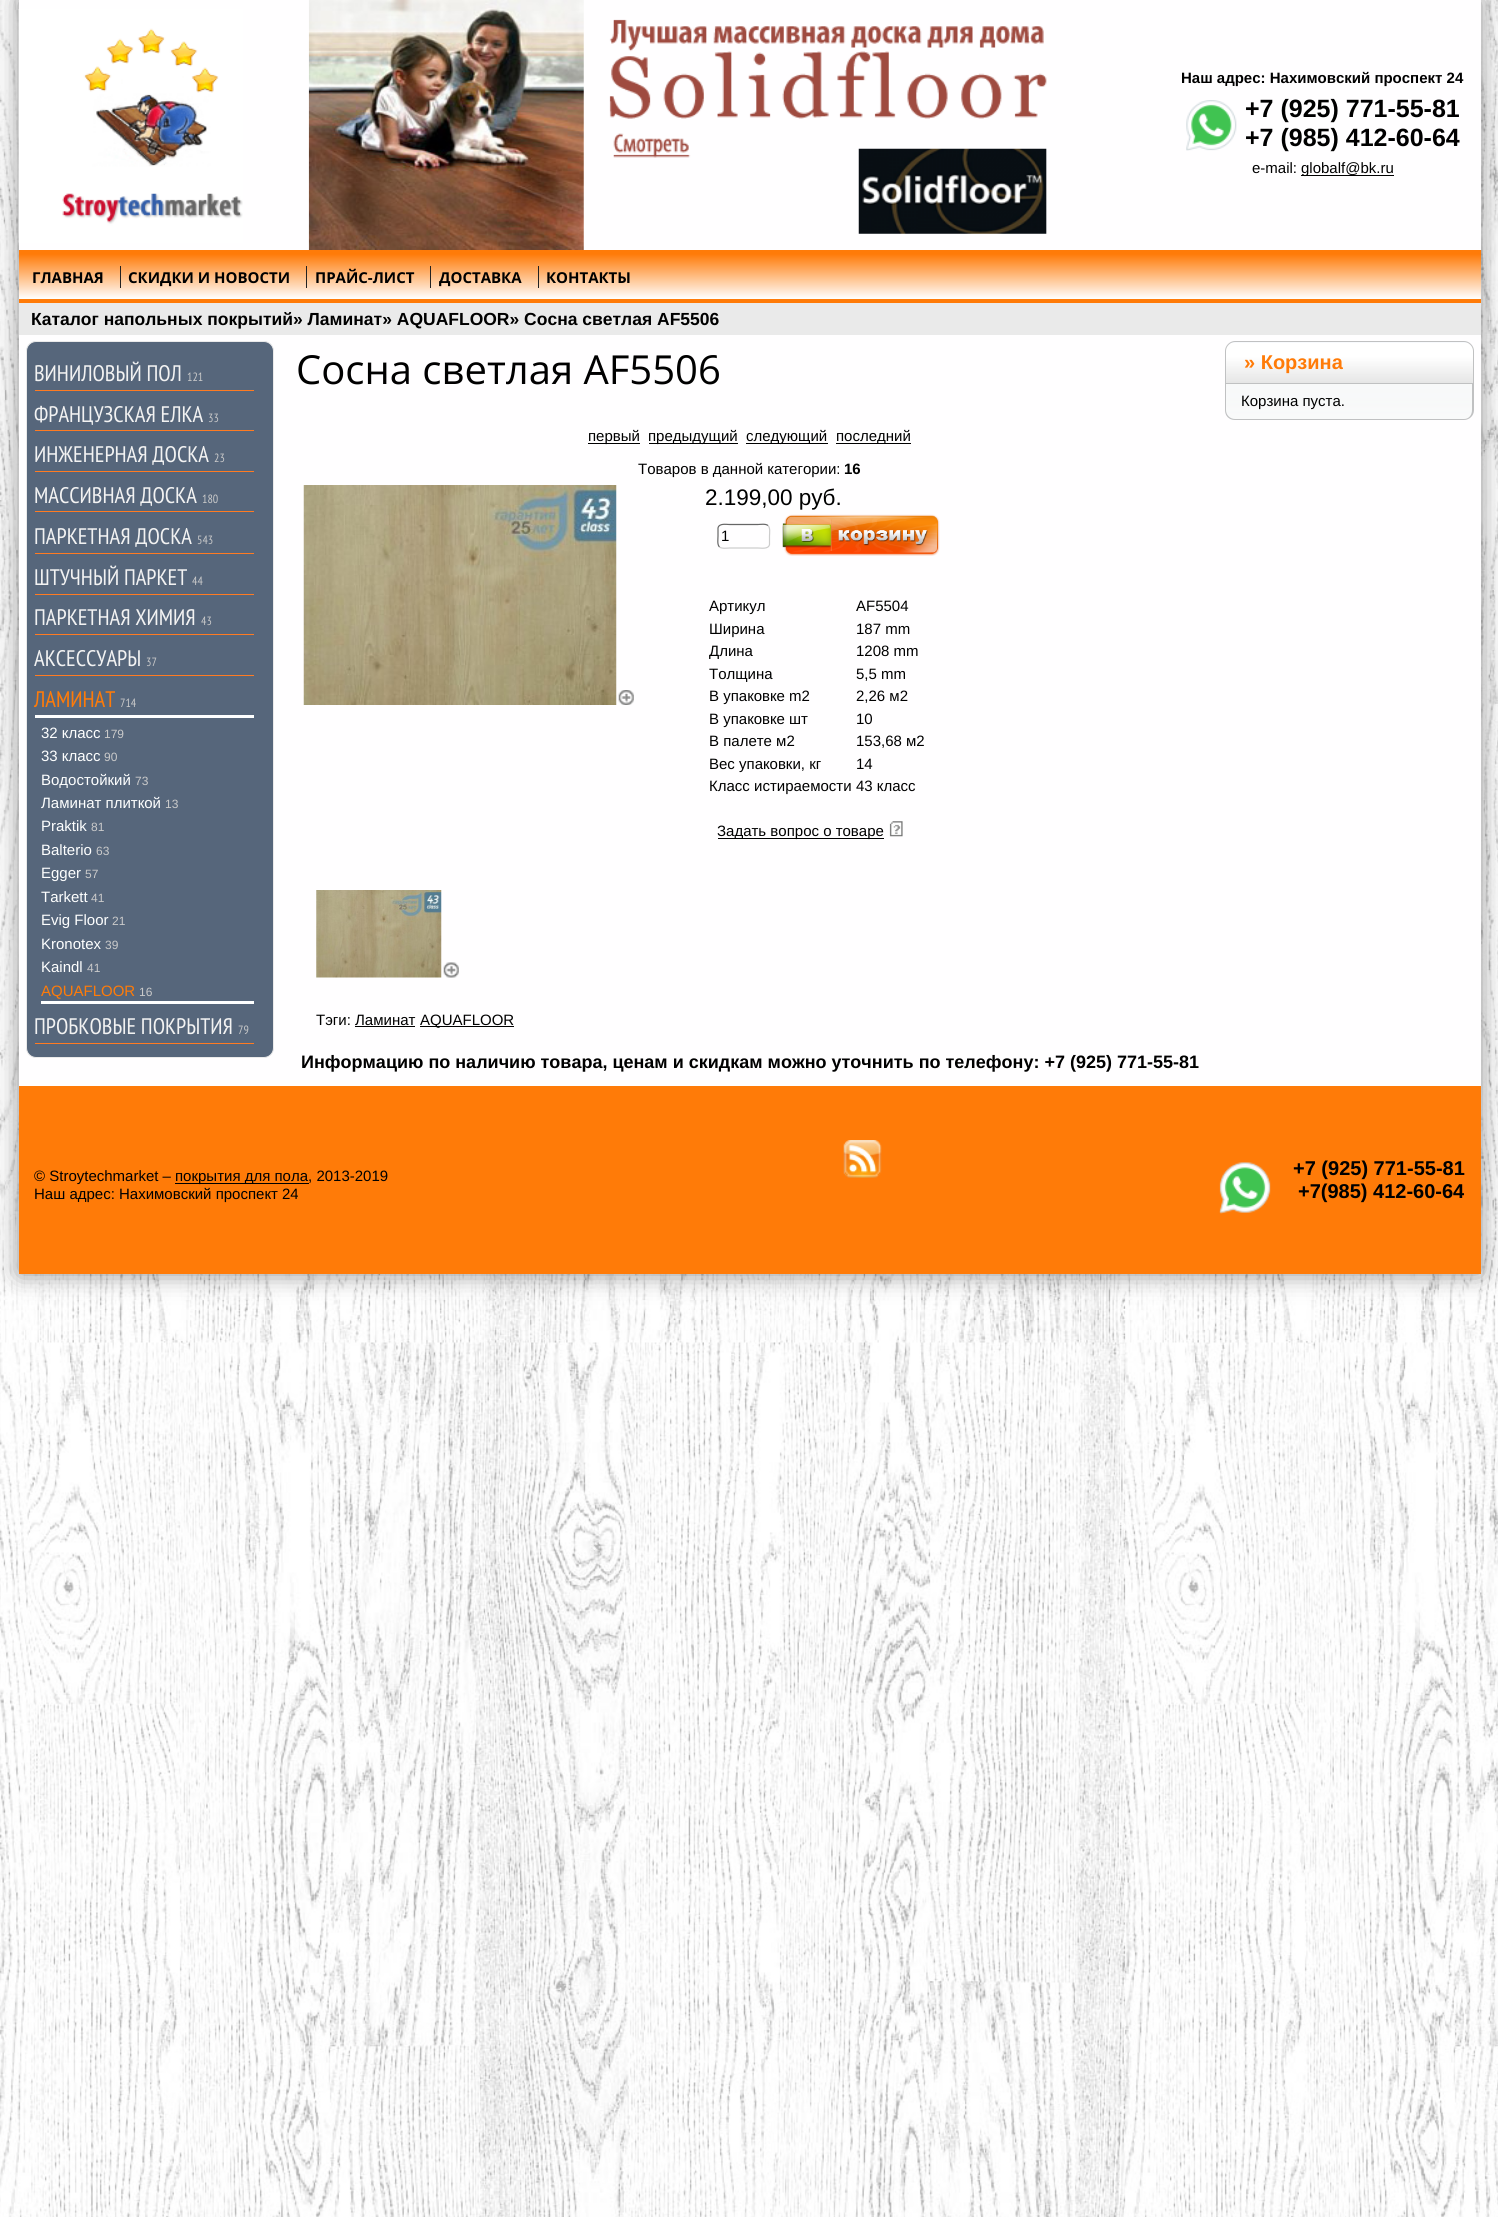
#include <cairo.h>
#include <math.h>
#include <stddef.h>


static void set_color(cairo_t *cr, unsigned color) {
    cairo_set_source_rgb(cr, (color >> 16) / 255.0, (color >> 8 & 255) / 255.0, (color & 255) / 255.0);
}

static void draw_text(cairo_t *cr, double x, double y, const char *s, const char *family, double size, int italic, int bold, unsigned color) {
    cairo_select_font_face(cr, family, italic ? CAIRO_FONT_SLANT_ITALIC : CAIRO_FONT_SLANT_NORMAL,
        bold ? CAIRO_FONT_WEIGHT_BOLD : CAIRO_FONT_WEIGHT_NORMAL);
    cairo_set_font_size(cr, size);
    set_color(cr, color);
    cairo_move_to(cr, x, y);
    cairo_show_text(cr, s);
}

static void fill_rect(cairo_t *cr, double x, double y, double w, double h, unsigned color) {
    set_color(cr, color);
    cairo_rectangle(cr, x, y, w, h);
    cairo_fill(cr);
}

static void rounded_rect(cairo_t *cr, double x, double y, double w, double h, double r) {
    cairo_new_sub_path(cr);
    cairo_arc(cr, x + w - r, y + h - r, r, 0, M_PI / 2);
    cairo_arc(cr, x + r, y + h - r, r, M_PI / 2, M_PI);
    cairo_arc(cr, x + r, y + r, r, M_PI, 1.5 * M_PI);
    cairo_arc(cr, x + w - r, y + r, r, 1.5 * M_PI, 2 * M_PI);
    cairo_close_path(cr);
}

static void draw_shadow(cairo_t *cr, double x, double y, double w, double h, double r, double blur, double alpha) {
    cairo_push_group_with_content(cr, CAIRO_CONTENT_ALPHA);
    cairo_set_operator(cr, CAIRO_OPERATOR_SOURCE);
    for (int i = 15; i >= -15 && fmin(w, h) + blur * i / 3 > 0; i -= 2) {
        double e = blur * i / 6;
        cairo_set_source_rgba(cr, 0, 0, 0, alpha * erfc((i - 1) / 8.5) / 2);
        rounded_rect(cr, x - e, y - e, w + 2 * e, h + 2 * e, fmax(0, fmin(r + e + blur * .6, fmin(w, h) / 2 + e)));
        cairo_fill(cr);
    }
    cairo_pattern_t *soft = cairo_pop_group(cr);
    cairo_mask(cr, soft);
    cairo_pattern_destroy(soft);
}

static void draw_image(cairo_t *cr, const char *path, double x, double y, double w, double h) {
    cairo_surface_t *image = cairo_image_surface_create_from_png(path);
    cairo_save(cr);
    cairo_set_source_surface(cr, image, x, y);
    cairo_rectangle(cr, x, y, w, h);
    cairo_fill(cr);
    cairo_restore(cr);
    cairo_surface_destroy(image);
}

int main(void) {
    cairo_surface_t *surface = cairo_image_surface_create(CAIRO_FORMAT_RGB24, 1498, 2217);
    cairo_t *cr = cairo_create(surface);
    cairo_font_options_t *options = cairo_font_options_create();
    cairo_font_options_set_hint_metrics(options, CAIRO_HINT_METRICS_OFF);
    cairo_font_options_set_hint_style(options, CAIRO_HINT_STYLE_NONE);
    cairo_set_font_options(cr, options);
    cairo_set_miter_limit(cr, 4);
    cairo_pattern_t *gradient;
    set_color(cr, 0xFFFFFF);
    cairo_paint(cr);
    draw_image(cr, "assets/img1.png", 0, 0, 1498, 2217);
    set_color(cr, 0x000000);
    draw_shadow(cr, 19, 0, 1462, 1274, 0, 12.5, 0.44);
    fill_rect(cr, 19, 0, 1462, 1086, 0xFFFEFF);
    draw_image(cr, "assets/img2.png", 18, 9, 225, 234);
    draw_image(cr, "assets/img3.png", 308, 0, 276, 250);
    draw_image(cr, "assets/img4.png", 609, 19, 438, 215);
    draw_text(cr, 1181, 83, "Наш адрес: Нахимовский проспект 24", "Liberation Sans", 15, 0, 1, 0x000000);
    draw_image(cr, "assets/img5.png", 1186, 100, 51, 51);
    draw_text(cr, 1245, 117, "+7 (925) 771-55-81", "Liberation Sans", 25, 0, 1, 0x000000);
    draw_text(cr, 1245, 146, "+7 (985) 412-60-64", "Liberation Sans", 25, 0, 1, 0x000000);
    draw_text(cr, 1252, 173, "e-mail:", "Liberation Sans", 15, 0, 0, 0x000000);
    fill_rect(cr, 1301, 175, 93, 1, 0x000000);
    draw_text(cr, 1301, 173, "globalf@bk.ru", "Liberation Sans", 15, 0, 0, 0x000000);
    gradient = cairo_pattern_create_linear(750, 299, 750, 254);
    cairo_pattern_add_color_stop_rgba(gradient, 0, 1, 1, 1, 1);
    cairo_pattern_add_color_stop_rgba(gradient, 1, 1, 0.482, 0.031, 1);
    cairo_set_source(cr, gradient);
    cairo_pattern_destroy(gradient);
    cairo_rectangle(cr, 19, 254, 1462, 45);
    cairo_fill(cr);
    fill_rect(cr, 19, 250, 1462, 4, 0xFF7B08);
    fill_rect(cr, 19, 299, 1462, 4, 0xFF7B08);
    draw_text(cr, 32, 283, "ГЛАВНАЯ", "Open Sans", 15, 0, 1, 0x000000);
    draw_text(cr, 128, 283, "СКИДКИ И НОВОСТИ", "Open Sans", 15, 0, 1, 0x000000);
    fill_rect(cr, 120, 266, 1, 22, 0x222222);
    draw_text(cr, 315, 283, "ПРАЙС-ЛИСТ", "Open Sans", 15, 0, 1, 0x000000);
    fill_rect(cr, 306, 266, 1, 22, 0x222222);
    draw_text(cr, 439, 283, "ДОСТАВКА", "Open Sans", 15, 0, 1, 0x000000);
    fill_rect(cr, 430, 266, 1, 22, 0x222222);
    draw_text(cr, 546, 283, "КОНТАКТЫ", "Open Sans", 15, 0, 1, 0x000000);
    fill_rect(cr, 538, 266, 1, 22, 0x222222);
    fill_rect(cr, 19, 303, 1462, 32, 0xEAEAEA);
    draw_text(cr, 31, 325, "Каталог напольных покрытий» Ламинат» AQUAFLOOR» Сосна светлая AF5506", "Liberation Sans", 17.5, 0, 1, 0x000000);
    set_color(cr, 0x56667B);
    rounded_rect(cr, 26.5, 341.5, 247, 716, 9.5);
    cairo_fill_preserve(cr);
    set_color(cr, 0xEAEAEA);
    cairo_set_line_width(cr, 1);
    cairo_stroke(cr);
    fill_rect(cr, 35, 390, 219, 1, 0xFF7B22);
    draw_text(cr, 34, 381, "ВИНИЛОВЫЙ ПОЛ", "PT Sans Narrow", 22.5, 0, 0, 0xF2F2F2);
    draw_text(cr, 187, 381, "121", "PT Sans Narrow", 12, 0, 0, 0xCACACA);
    fill_rect(cr, 35, 430, 219, 1, 0xFF7B22);
    draw_text(cr, 34, 422, "ФРАНЦУЗСКАЯ ЕЛКА", "PT Sans Narrow", 22.5, 0, 0, 0xF2F2F2);
    draw_text(cr, 208, 422, "33", "PT Sans Narrow", 12, 0, 0, 0xCACACA);
    fill_rect(cr, 35, 471, 219, 1, 0xFF7B22);
    draw_text(cr, 34, 462, "ИНЖЕНЕРНАЯ ДОСКА", "PT Sans Narrow", 22.5, 0, 0, 0xF2F2F2);
    draw_text(cr, 214, 462, "23", "PT Sans Narrow", 12, 0, 0, 0xCACACA);
    fill_rect(cr, 35, 511, 219, 1, 0xFF7B22);
    draw_text(cr, 34, 503, "МАССИВНАЯ ДОСКА", "PT Sans Narrow", 22.5, 0, 0, 0xF2F2F2);
    draw_text(cr, 202, 503, "180", "PT Sans Narrow", 12, 0, 0, 0xCACACA);
    fill_rect(cr, 35, 553, 219, 1, 0xFF7B22);
    draw_text(cr, 34, 544, "ПАРКЕТНАЯ ДОСКА", "PT Sans Narrow", 22.5, 0, 0, 0xF2F2F2);
    draw_text(cr, 197, 544, "543", "PT Sans Narrow", 12, 0, 0, 0xCACACA);
    fill_rect(cr, 35, 594, 219, 1, 0xFF7B22);
    draw_text(cr, 34, 585, "ШТУЧНЫЙ ПАРКЕТ", "PT Sans Narrow", 22.5, 0, 0, 0xF2F2F2);
    draw_text(cr, 192, 585, "44", "PT Sans Narrow", 12, 0, 0, 0xCACACA);
    fill_rect(cr, 35, 634, 219, 1, 0xFF7B22);
    draw_text(cr, 34, 625, "ПАРКЕТНАЯ ХИМИЯ", "PT Sans Narrow", 22.5, 0, 0, 0xF2F2F2);
    draw_text(cr, 201, 625, "43", "PT Sans Narrow", 12, 0, 0, 0xCACACA);
    fill_rect(cr, 35, 675, 219, 1, 0xFF7B22);
    draw_text(cr, 34, 666, "АКСЕССУАРЫ", "PT Sans Narrow", 22.5, 0, 0, 0xF2F2F2);
    draw_text(cr, 146, 666, "37", "PT Sans Narrow", 12, 0, 0, 0xCACACA);
    fill_rect(cr, 35, 715, 219, 3, 0xFEFFFF);
    draw_text(cr, 34, 707, "ЛАМИНАТ", "PT Sans Narrow", 22.5, 0, 0, 0xFF7B08);
    draw_text(cr, 120, 707, "714", "PT Sans Narrow", 12, 0, 0, 0xCACACA);
    draw_text(cr, 41, 738, "32 класс", "Liberation Sans", 15, 0, 0, 0xFEFFFF);
    draw_text(cr, 104, 738, "179", "Liberation Sans", 12, 0, 0, 0xCACACA);
    draw_text(cr, 41, 761, "33 класс", "Liberation Sans", 15, 0, 0, 0xFEFFFF);
    draw_text(cr, 104, 761, "90", "Liberation Sans", 12, 0, 0, 0xCACACA);
    draw_text(cr, 41, 785, "Водостойкий", "Liberation Sans", 15, 0, 0, 0xFEFFFF);
    draw_text(cr, 135, 785, "73", "Liberation Sans", 12, 0, 0, 0xCACACA);
    draw_text(cr, 41, 808, "Ламинат плиткой", "Liberation Sans", 15, 0, 0, 0xFEFFFF);
    draw_text(cr, 165, 808, "13", "Liberation Sans", 12, 0, 0, 0xCACACA);
    draw_text(cr, 41, 831, "Praktik", "Liberation Sans", 15, 0, 0, 0xFEFFFF);
    draw_text(cr, 91, 831, "81", "Liberation Sans", 12, 0, 0, 0xCACACA);
    draw_text(cr, 41, 855, "Balterio", "Liberation Sans", 15, 0, 0, 0xFEFFFF);
    draw_text(cr, 96, 855, "63", "Liberation Sans", 12, 0, 0, 0xCACACA);
    draw_text(cr, 41, 878, "Egger", "Liberation Sans", 15, 0, 0, 0xFEFFFF);
    draw_text(cr, 85, 878, "57", "Liberation Sans", 12, 0, 0, 0xCACACA);
    draw_text(cr, 41, 902, "Tаrkett", "Liberation Sans", 15, 0, 0, 0xFEFFFF);
    draw_text(cr, 91, 902, "41", "Liberation Sans", 12, 0, 0, 0xCACACA);
    draw_text(cr, 41, 925, "Evig Floor", "Liberation Sans", 15, 0, 0, 0xFEFFFF);
    draw_text(cr, 112, 925, "21", "Liberation Sans", 12, 0, 0, 0xCACACA);
    draw_text(cr, 41, 949, "Kronotex", "Liberation Sans", 15, 0, 0, 0xFEFFFF);
    draw_text(cr, 105, 949, "39", "Liberation Sans", 12, 0, 0, 0xCACACA);
    draw_text(cr, 41, 972, "Kaindl", "Liberation Sans", 15, 0, 0, 0xFEFFFF);
    draw_text(cr, 87, 972, "41", "Liberation Sans", 12, 0, 0, 0xCACACA);
    fill_rect(cr, 41, 1001, 213, 3, 0xFEFFFF);
    draw_text(cr, 41, 996, "AQUAFLOOR", "Liberation Sans", 15, 0, 0, 0xFF7B08);
    draw_text(cr, 139, 996, "16", "Liberation Sans", 12, 0, 0, 0xCACACA);
    fill_rect(cr, 35, 1043, 219, 1, 0xFF7B22);
    draw_text(cr, 34, 1034, "ПРОБКОВЫЕ ПОКРЫТИЯ", "PT Sans Narrow", 22.5, 0, 0, 0xF2F2F2);
    draw_text(cr, 238, 1034, "79", "PT Sans Narrow", 12, 0, 0, 0xCACACA);
    draw_text(cr, 296, 384, "Сосна светлая AF5506", "Open Sans", 40, 0, 0, 0x000000);
    fill_rect(cr, 588, 443, 52, 1, 0x000000);
    draw_text(cr, 588, 441, "первый", "Liberation Sans", 15, 0, 0, 0x000000);
    fill_rect(cr, 649, 443, 89, 1, 0x000000);
    draw_text(cr, 648, 441, "предыдущий", "Liberation Sans", 15, 0, 0, 0x000000);
    fill_rect(cr, 746, 443, 82, 1, 0x000000);
    draw_text(cr, 746, 441, "следующий", "Liberation Sans", 15, 0, 0, 0x000000);
    fill_rect(cr, 836, 443, 75, 1, 0x000000);
    draw_text(cr, 836, 441, "последний", "Liberation Sans", 15, 0, 0, 0x000000);
    draw_text(cr, 638, 474, "Товаров в данной категории:", "Liberation Sans", 15, 0, 0, 0x000000);
    draw_text(cr, 844, 474, "16", "Liberation Sans", 15, 0, 1, 0x000000);
    draw_image(cr, "assets/img6.png", 303, 485, 314, 220);
    draw_image(cr, "assets/img7.png", 618, 690, 16, 15);
    draw_text(cr, 705, 505, "2.199,00 руб.", "Liberation Sans", 22.5, 0, 0, 0x000000);
    cairo_new_path(cr);
    cairo_move_to(cr, 768, 525.5);
    cairo_curve_to(cr, 770.5, 528, 769.5, 533, 769.5, 536);
    cairo_line_to(cr, 769.5, 544.5);
    cairo_curve_to(cr, 768.5, 549.5, 761, 548, 758, 548);
    cairo_line_to(cr, 729.5, 548);
    cairo_curve_to(cr, 727.5, 548, 722, 549, 719.5, 547);
    set_color(cr, 0xCCCCCC);
    cairo_set_line_width(cr, 1.2);
    cairo_stroke(cr);
    cairo_new_path(cr);
    cairo_move_to(cr, 719.5, 547);
    cairo_curve_to(cr, 717, 544.5, 718, 539.5, 718, 536);
    cairo_line_to(cr, 718, 528);
    cairo_curve_to(cr, 719, 523, 726.5, 524.5, 729.5, 524.5);
    cairo_line_to(cr, 758, 524.5);
    cairo_curve_to(cr, 760, 524.5, 765.5, 523.5, 768, 525.5);
    set_color(cr, 0x666666);
    cairo_stroke(cr);
    draw_text(cr, 721, 541, "1", "Liberation Sans", 15, 0, 0, 0x000000);
    draw_image(cr, "assets/img8.png", 782, 514, 158, 42);
    draw_text(cr, 709, 611, "Артикул", "Liberation Sans", 15, 0, 0, 0x000000);
    draw_text(cr, 856, 611, "AF5504", "Liberation Sans", 15, 0, 0, 0x000000);
    draw_text(cr, 709, 634, "Ширина", "Liberation Sans", 15, 0, 0, 0x000000);
    draw_text(cr, 856, 634, "187 mm", "Liberation Sans", 15, 0, 0, 0x000000);
    draw_text(cr, 709, 656, "Длина", "Liberation Sans", 15, 0, 0, 0x000000);
    draw_text(cr, 856, 656, "1208 mm", "Liberation Sans", 15, 0, 0, 0x000000);
    draw_text(cr, 709, 679, "Толщина", "Liberation Sans", 15, 0, 0, 0x000000);
    draw_text(cr, 856, 679, "5,5 mm", "Liberation Sans", 15, 0, 0, 0x000000);
    draw_text(cr, 709, 701, "В упаковке m2", "Liberation Sans", 15, 0, 0, 0x000000);
    draw_text(cr, 856, 701, "2,26 м2", "Liberation Sans", 15, 0, 0, 0x000000);
    draw_text(cr, 709, 724, "В упаковке шт", "Liberation Sans", 15, 0, 0, 0x000000);
    draw_text(cr, 856, 724, "10", "Liberation Sans", 15, 0, 0, 0x000000);
    draw_text(cr, 709, 746, "В палете м2", "Liberation Sans", 15, 0, 0, 0x000000);
    draw_text(cr, 856, 746, "153,68 м2", "Liberation Sans", 15, 0, 0, 0x000000);
    draw_text(cr, 709, 769, "Вес упаковки, кг", "Liberation Sans", 15, 0, 0, 0x000000);
    draw_text(cr, 856, 769, "14", "Liberation Sans", 15, 0, 0, 0x000000);
    draw_text(cr, 709, 791, "Класс истираемоcти", "Liberation Sans", 15, 0, 0, 0x000000);
    draw_text(cr, 856, 791, "43 класс", "Liberation Sans", 15, 0, 0, 0x000000);
    fill_rect(cr, 718, 838, 166, 1, 0x000000);
    draw_text(cr, 717, 836, "Задать вопрос о товаре", "Liberation Sans", 15, 0, 0, 0x000000);
    draw_image(cr, "assets/img9.png", 889, 821, 14, 16);
    draw_image(cr, "assets/img10.png", 316, 890, 126, 88);
    draw_image(cr, "assets/img11.png", 443, 962, 16, 16);
    draw_text(cr, 316, 1025, "Тэги: Ламинат", "Liberation Sans", 15, 0, 0, 0x000000);
    fill_rect(cr, 420, 1026, 94, 1, 0x000000);
    draw_text(cr, 420, 1025, "AQUAFLOOR", "Liberation Sans", 15, 0, 0, 0x000000);
    fill_rect(cr, 355, 1026, 60, 1, 0x000000);
    draw_text(cr, 301, 1068, "Информацию по наличию товара, ценам и скидкам можно уточнить по телефону: +7 (925) 771-55-81", "Liberation Sans", 18, 0, 1, 0x000000);
    draw_image(cr, "assets/img12.png", 1225, 342, 249, 41);
    cairo_new_path(cr);
    cairo_move_to(cr, 1235, 341.5);
    cairo_line_to(cr, 1464, 341.5);
    cairo_curve_to(cr, 1469, 341.5, 1473.5, 346, 1473.5, 351);
    cairo_line_to(cr, 1473.5, 383.5);
    cairo_line_to(cr, 1225.5, 383.5);
    cairo_line_to(cr, 1225.5, 351);
    cairo_curve_to(cr, 1225.5, 346, 1230, 341.5, 1235, 341.5);
    cairo_close_path(cr);
    set_color(cr, 0xC0C1C2);
    cairo_set_line_width(cr, 1);
    cairo_stroke(cr);
    draw_text(cr, 1244, 369, "» Корзина", "Liberation Sans", 20, 0, 1, 0xFF7B08);
    draw_image(cr, "assets/img13.png", 1225, 384, 248, 36);
    set_color(cr, 0xC0C1C2);
    cairo_set_fill_rule(cr, CAIRO_FILL_RULE_EVEN_ODD);
    cairo_new_path(cr);
    cairo_move_to(cr, 1225, 384);
    cairo_line_to(cr, 1474, 384);
    cairo_line_to(cr, 1474, 410);
    cairo_curve_to(cr, 1474, 416, 1469, 420, 1464, 420);
    cairo_line_to(cr, 1235, 420);
    cairo_curve_to(cr, 1229, 420, 1225, 416, 1225, 410);
    cairo_close_path(cr);
    cairo_move_to(cr, 1226, 384);
    cairo_line_to(cr, 1472, 384);
    cairo_line_to(cr, 1472, 410);
    cairo_curve_to(cr, 1472, 415, 1469, 419, 1464, 419);
    cairo_line_to(cr, 1235, 419);
    cairo_curve_to(cr, 1230, 419, 1226, 415, 1226, 410);
    cairo_close_path(cr);
    cairo_fill(cr);
    draw_text(cr, 1241, 406, "Корзина пуста.", "Liberation Sans", 15, 0, 0, 0x000000);
    fill_rect(cr, 19, 1086, 1462, 188, 0xFF7B08);
    draw_text(cr, 34, 1181, "© Stroytechmarket –", "Liberation Sans", 15, 0, 0, 0x000000);
    fill_rect(cr, 175, 1183, 134, 1, 0x000000);
    draw_text(cr, 175, 1181, "покрытия для пола, 2013-2019", "Liberation Sans", 15, 0, 0, 0x000000);
    draw_text(cr, 34, 1199, "Наш адрес: Нахимовский проспект 24", "Liberation Sans", 15, 0, 0, 0x000000);
    draw_image(cr, "assets/img14.png", 843, 1140, 39, 38);
    draw_image(cr, "assets/img15.png", 1219, 1162, 52, 52);
    draw_text(cr, 1293, 1175, "+7 (925) 771-55-81", "Liberation Sans", 20, 0, 1, 0x000000);
    draw_text(cr, 1298, 1198, "+7(985) 412-60-64", "Liberation Sans", 20, 0, 1, 0x000000);
    cairo_surface_write_to_png(surface, "output.png");
    cairo_font_options_destroy(options);
    cairo_destroy(cr);
    cairo_surface_destroy(surface);
    return 0;
}
